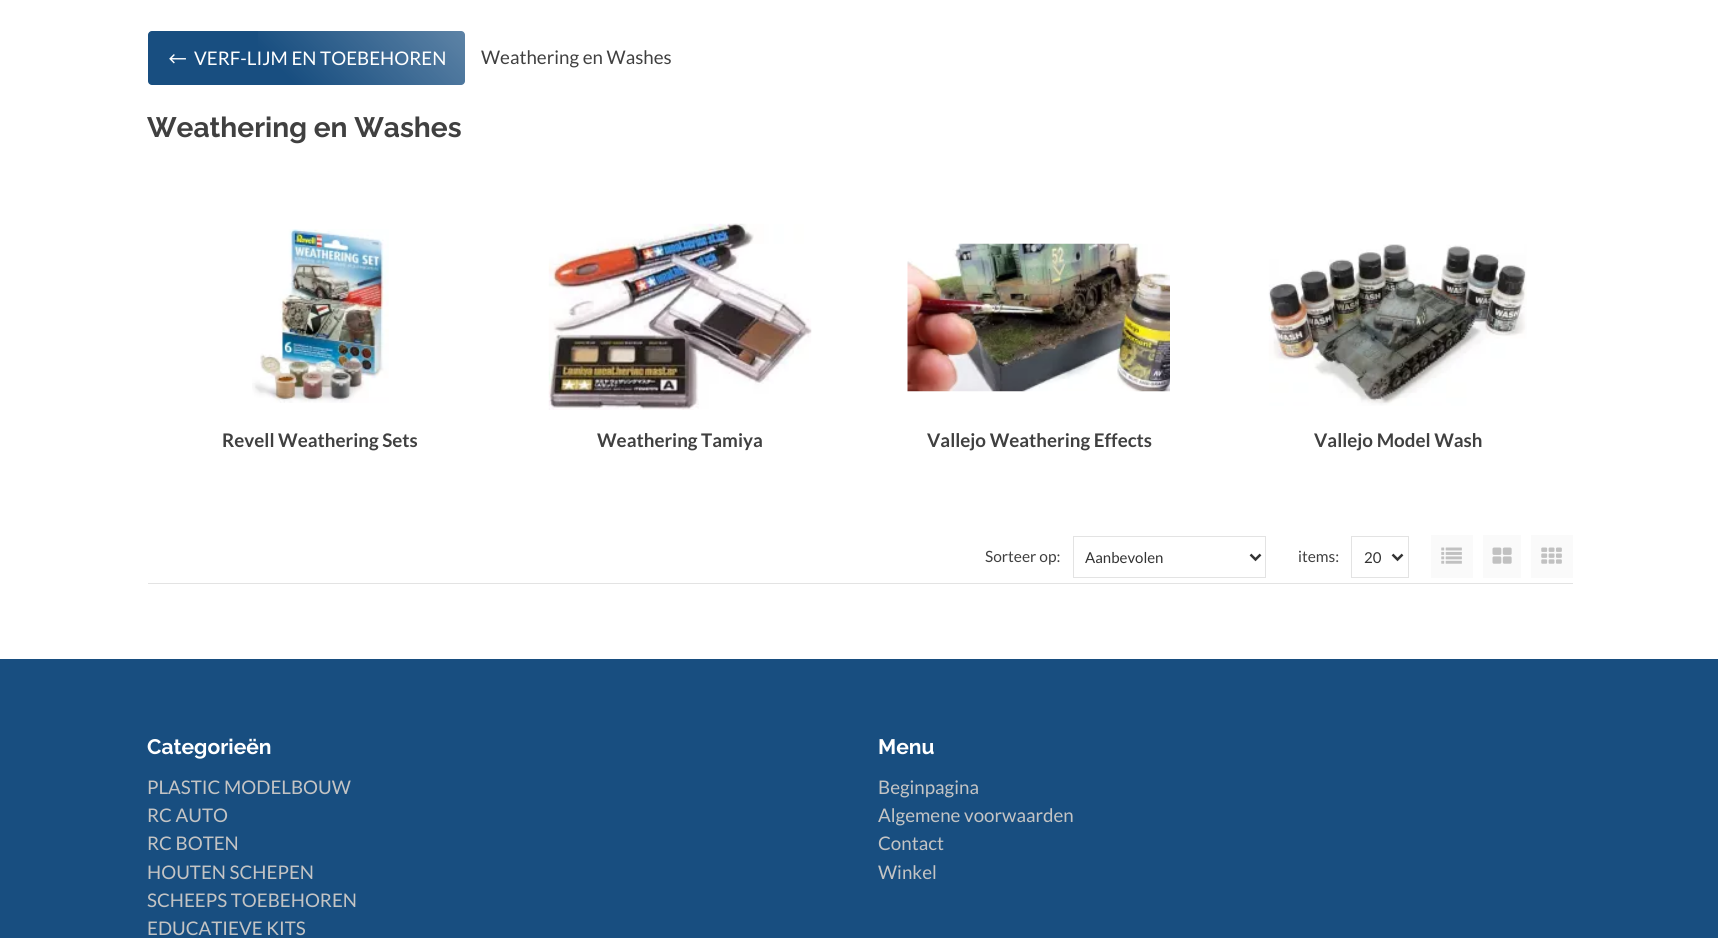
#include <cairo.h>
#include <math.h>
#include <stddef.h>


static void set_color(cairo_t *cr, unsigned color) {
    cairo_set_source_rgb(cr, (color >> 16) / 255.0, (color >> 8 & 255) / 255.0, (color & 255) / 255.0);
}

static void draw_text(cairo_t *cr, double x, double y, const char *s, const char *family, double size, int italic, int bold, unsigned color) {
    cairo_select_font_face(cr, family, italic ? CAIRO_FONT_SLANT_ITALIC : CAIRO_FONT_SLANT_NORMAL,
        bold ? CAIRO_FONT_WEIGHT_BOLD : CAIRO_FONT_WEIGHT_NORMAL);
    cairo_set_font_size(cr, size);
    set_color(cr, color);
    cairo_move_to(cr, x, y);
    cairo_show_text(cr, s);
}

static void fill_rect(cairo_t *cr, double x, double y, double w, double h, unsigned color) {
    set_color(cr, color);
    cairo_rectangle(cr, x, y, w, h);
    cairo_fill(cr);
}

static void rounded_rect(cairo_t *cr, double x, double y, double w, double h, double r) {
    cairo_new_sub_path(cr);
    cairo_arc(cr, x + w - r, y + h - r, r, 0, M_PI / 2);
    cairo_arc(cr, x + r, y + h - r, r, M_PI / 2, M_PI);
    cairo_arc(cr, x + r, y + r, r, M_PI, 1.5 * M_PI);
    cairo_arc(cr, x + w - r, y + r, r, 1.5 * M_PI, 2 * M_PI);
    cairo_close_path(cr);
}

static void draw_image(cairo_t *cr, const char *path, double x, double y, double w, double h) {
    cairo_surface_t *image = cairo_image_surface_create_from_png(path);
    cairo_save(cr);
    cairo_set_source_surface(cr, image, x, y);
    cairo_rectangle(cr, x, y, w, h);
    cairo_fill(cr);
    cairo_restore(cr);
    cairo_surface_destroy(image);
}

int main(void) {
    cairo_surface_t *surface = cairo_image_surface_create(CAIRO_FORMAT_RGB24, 1718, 938);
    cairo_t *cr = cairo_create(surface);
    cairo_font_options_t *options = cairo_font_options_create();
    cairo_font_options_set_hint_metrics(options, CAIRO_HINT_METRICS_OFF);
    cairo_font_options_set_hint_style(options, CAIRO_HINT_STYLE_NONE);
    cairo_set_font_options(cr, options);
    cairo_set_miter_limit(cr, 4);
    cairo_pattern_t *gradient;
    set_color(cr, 0xFFFFFF);
    cairo_paint(cr);
    set_color(cr, 0x184E80);
    rounded_rect(cr, 148, 31, 317, 54, 4);
    cairo_fill(cr);
    gradient = cairo_pattern_create_linear(399, -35, 213, 151);
    cairo_pattern_add_color_stop_rgba(gradient, 0, 1, 1, 1, 0.3);
    cairo_pattern_add_color_stop_rgba(gradient, 0.6, 1, 1, 1, 0);
    cairo_set_source(cr, gradient);
    cairo_pattern_destroy(gradient);
    cairo_rectangle(cr, 258, 31, 207, 54);
    cairo_fill(cr);
    draw_image(cr, "assets/img1.png", 169, 54, 17, 10);
    draw_text(cr, 194, 65, "VERF-LIJM EN TOEBEHOREN", "Lato", 18.75, 0, 0, 0xFFFFFF);
    draw_text(cr, 481, 64, "Weathering en Washes", "Lato", 18.75, 0, 0, 0x404040);
    draw_text(cr, 147, 137, "Weathering en Washes", "Raleway", 28.1, 0, 1, 0x404040);
    draw_image(cr, "assets/img2.png", 252, 229, 137, 174);
    draw_text(cr, 222, 447, "Revell Weathering Sets", "Lato", 18.75, 0, 1, 0x404040);
    draw_image(cr, "assets/img3.png", 548, 223, 264, 187);
    draw_text(cr, 597, 447, "Weathering Tamiya", "Lato", 18.75, 0, 1, 0x404040);
    draw_image(cr, "assets/img4.png", 907, 243, 263, 149);
    draw_text(cr, 927, 447, "Vallejo Weathering Effects", "Lato", 18.75, 0, 1, 0x404040);
    draw_image(cr, "assets/img5.png", 1268, 244, 259, 162);
    draw_text(cr, 1314, 447, "Vallejo Model Wash", "Lato", 18.75, 0, 1, 0x404040);
    fill_rect(cr, 148, 583, 1425, 1, 0xE3E3E3);
    draw_text(cr, 985, 562, "Sorteer op:", "Lato", 15.5, 0, 0, 0x404040);
    cairo_rectangle(cr, 1073.5, 536.5, 192, 41);
    set_color(cr, 0xE3E3E3);
    cairo_set_line_width(cr, 1);
    cairo_stroke(cr);
    cairo_new_path(cr);
    cairo_move_to(cr, 1250.5, 554.5);
    cairo_line_to(cr, 1255.5, 559.5);
    cairo_line_to(cr, 1260.5, 554.5);
    set_color(cr, 0x333333);
    cairo_set_line_width(cr, 2.5);
    cairo_stroke(cr);
    draw_text(cr, 1085, 563, "Aanbevolen", "Lato", 15, 0, 0, 0x333333);
    draw_text(cr, 1298, 562, "items:", "Lato", 15.5, 0, 0, 0x404040);
    cairo_rectangle(cr, 1351.5, 536.5, 57, 41);
    set_color(cr, 0xE3E3E3);
    cairo_set_line_width(cr, 1);
    cairo_stroke(cr);
    cairo_new_path(cr);
    cairo_move_to(cr, 1392.5, 554.5);
    cairo_line_to(cr, 1397.5, 559.5);
    cairo_line_to(cr, 1402.5, 554.5);
    set_color(cr, 0x333333);
    cairo_set_line_width(cr, 2.5);
    cairo_stroke(cr);
    draw_text(cr, 1364, 563, "20", "Lato", 15, 0, 0, 0x333333);
    fill_rect(cr, 1431, 535, 42, 43, 0xFAFAFA);
    draw_image(cr, "assets/img6.png", 1441, 547, 21, 17);
    fill_rect(cr, 1483, 535, 38, 43, 0xFAFAFA);
    draw_image(cr, "assets/img7.png", 1492, 547, 20, 17);
    fill_rect(cr, 1531, 535, 42, 43, 0xFAFAFA);
    draw_image(cr, "assets/img8.png", 1541, 547, 21, 17);
    fill_rect(cr, 0, 659, 1718, 279, 0x184E80);
    draw_text(cr, 147, 754, "Categorieën", "Raleway", 21, 0, 1, 0xFFFFFF);
    draw_text(cr, 147, 794, "PLASTIC MODELBOUW", "Lato", 18.75, 0, 0, 0xC4C4C4);
    draw_text(cr, 147, 822, "RC AUTO", "Lato", 18.75, 0, 0, 0xC4C4C4);
    draw_text(cr, 147, 850, "RC BOTEN", "Lato", 18.75, 0, 0, 0xC4C4C4);
    draw_text(cr, 147, 879, "HOUTEN SCHEPEN", "Lato", 18.75, 0, 0, 0xC4C4C4);
    draw_text(cr, 147, 907, "SCHEEPS TOEBEHOREN", "Lato", 18.75, 0, 0, 0xC4C4C4);
    draw_text(cr, 147, 935, "EDUCATIEVE KITS", "Lato", 18.75, 0, 0, 0xC4C4C4);
    draw_text(cr, 878, 754, "Menu", "Raleway", 21, 0, 1, 0xFFFFFF);
    draw_text(cr, 878, 794, "Beginpagina", "Lato", 18.75, 0, 0, 0xC4C4C4);
    draw_text(cr, 878, 822, "Algemene voorwaarden", "Lato", 18.75, 0, 0, 0xC4C4C4);
    draw_text(cr, 878, 850, "Contact", "Lato", 18.75, 0, 0, 0xC4C4C4);
    draw_text(cr, 878, 879, "Winkel", "Lato", 18.75, 0, 0, 0xC4C4C4);
    cairo_surface_write_to_png(surface, "output.png");
    cairo_font_options_destroy(options);
    cairo_destroy(cr);
    cairo_surface_destroy(surface);
    return 0;
}
